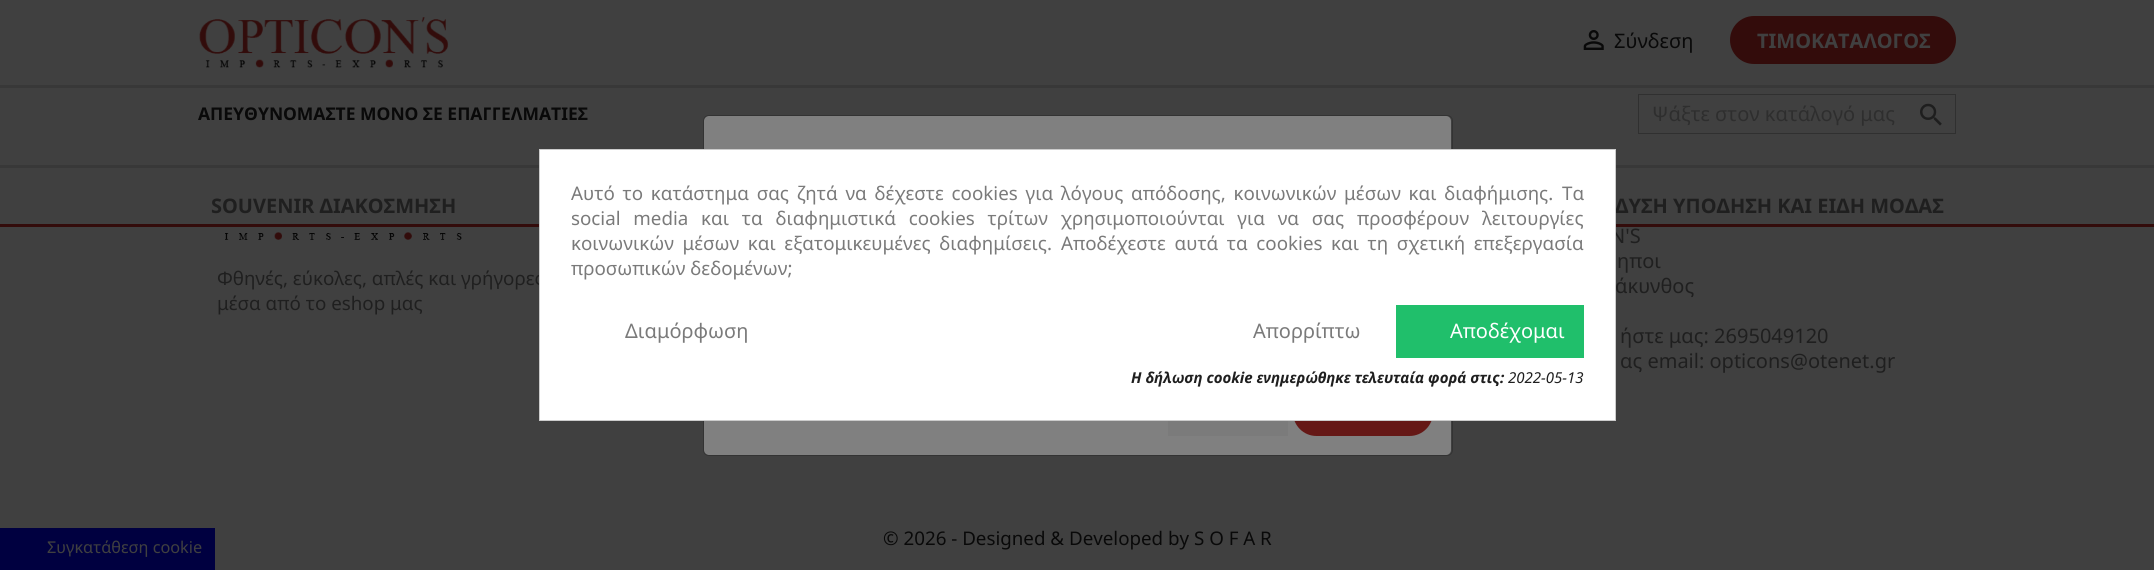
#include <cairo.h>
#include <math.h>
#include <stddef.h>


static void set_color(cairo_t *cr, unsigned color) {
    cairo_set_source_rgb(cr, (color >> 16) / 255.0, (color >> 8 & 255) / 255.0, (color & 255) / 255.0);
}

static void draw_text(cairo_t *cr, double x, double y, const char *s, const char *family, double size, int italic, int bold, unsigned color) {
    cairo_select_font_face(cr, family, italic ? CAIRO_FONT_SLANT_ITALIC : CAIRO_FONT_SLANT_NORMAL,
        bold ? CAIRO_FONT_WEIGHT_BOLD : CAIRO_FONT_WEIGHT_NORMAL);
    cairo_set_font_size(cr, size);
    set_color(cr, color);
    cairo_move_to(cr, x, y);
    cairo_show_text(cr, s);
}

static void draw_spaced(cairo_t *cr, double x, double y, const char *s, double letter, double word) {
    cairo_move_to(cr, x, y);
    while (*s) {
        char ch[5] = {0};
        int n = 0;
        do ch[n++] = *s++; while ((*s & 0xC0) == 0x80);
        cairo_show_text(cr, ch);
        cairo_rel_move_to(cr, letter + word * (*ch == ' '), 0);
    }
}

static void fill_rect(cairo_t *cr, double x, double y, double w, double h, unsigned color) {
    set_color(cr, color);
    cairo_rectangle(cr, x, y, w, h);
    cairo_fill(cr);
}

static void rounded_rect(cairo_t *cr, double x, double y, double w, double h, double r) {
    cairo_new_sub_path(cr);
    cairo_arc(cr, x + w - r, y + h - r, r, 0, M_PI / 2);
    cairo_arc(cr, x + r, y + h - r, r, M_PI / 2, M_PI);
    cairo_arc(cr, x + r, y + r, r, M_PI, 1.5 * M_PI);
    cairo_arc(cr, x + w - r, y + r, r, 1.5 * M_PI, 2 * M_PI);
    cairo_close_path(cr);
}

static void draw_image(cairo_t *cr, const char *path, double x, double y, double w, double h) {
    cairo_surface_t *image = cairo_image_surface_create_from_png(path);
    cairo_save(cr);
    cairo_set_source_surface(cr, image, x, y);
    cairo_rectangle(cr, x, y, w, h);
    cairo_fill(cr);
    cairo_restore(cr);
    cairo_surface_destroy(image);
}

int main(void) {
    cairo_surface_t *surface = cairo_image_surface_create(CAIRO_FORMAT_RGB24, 2154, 570);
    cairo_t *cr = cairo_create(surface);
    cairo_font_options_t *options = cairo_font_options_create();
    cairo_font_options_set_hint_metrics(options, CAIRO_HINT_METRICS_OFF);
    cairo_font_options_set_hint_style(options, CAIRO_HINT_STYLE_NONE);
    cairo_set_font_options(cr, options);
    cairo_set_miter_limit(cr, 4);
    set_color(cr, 0x404040);
    cairo_paint(cr);
    fill_rect(cr, 0, 85, 2154, 3, 0x383838);
    draw_image(cr, "assets/img1.png", 199, 17, 250, 51);
    draw_image(cr, "assets/img2.png", 1583, 30, 21, 20);
    draw_text(cr, 1614, 48, "Σύνδεση", "Noto Sans", 20, 0, 0, 0x090909);
    set_color(cr, 0x330C0B);
    rounded_rect(cr, 1730, 16, 226, 48, 24);
    cairo_fill(cr);
    draw_text(cr, 1757, 48, "ΤΙΜΟΚΑΤΑΛΟΓΟΣ", "Noto Sans", 20, 0, 1, 0x404040);
    fill_rect(cr, 0, 165, 2154, 3, 0x383838);
    draw_text(cr, 198, 120, "ΑΠΕΥΘΥΝΟΜΑΣΤΕ ΜΟΝΟ ΣΕ ΕΠΑΓΓΕΛΜΑΤΙΕΣ", "Noto Sans", 17.5, 0, 1, 0x090909);
    cairo_rectangle(cr, 1638.5, 94.5, 317, 39);
    set_color(cr, 0x303030);
    cairo_set_line_width(cr, 1);
    cairo_stroke(cr);
    draw_text(cr, 1652, 121, "Ψάξτε στον κατάλογό μας", "Noto Sans", 20, 0, 0, 0x2E2E2E);
    draw_image(cr, "assets/img3.png", 1920, 103, 22, 23);
    fill_rect(cr, 0, 224, 2154, 3, 0x330C0B);
    draw_text(cr, 211, 213, "SOUVENIR ΔΙΑΚΟΣΜΗΣΗ", "Noto Sans", 20, 0, 1, 0x1F1F1F);
    draw_text(cr, 1615, 213, "ΔΥΣΗ ΥΠΟΔΗΣΗ ΚΑΙ ΕΙΔΗ ΜΟΔΑΣ", "Noto Sans", 20, 0, 1, 0x1F1F1F);
    set_color(cr, 0x808080);
    rounded_rect(cr, 704, 116, 747, 339, 5);
    cairo_fill(cr);
    rounded_rect(cr, 703.5, 115.5, 749, 340, 5.5);
    cairo_set_source_rgba(cr, 0, 0, 0, 0.2);
    cairo_stroke(cr);
    fill_rect(cr, 1168, 421, 120, 15, 0x7B7B7B);
    set_color(cr, 0x651816);
    rounded_rect(cr, 1293, 389, 140, 47, 23.5);
    cairo_fill(cr);
    draw_image(cr, "assets/img4.png", 225, 232, 237, 8);
    draw_text(cr, 217, 285, "Φθηνές, εύκολες, απλές και γρήγορες", "Noto Sans", 18.75, 0, 0, 0x1F1F1F);
    draw_text(cr, 217, 310, "μέσα από το eshop μας", "Noto Sans", 18.75, 0, 0, 0x1F1F1F);
    draw_text(cr, 1610, 243, "N'S", "Noto Sans", 20, 0, 0, 0x1F1F1F);
    draw_text(cr, 1617, 268, "ηποι", "Noto Sans", 20, 0, 0, 0x1F1F1F);
    draw_text(cr, 1615, 293, "άκυνθος", "Noto Sans", 20, 0, 0, 0x1F1F1F);
    draw_text(cr, 1620, 343, "ήστε μας: 2695049120", "Noto Sans", 20, 0, 0, 0x1F1F1F);
    draw_text(cr, 1620, 368, "ας email: opticons@otenet.gr", "Noto Sans", 20, 0, 0, 0x1F1F1F);
    draw_text(cr, 883, 545, "© 2026 - Designed & Developed by S O F A R", "Noto Sans", 18.75, 0, 0, 0x090909);
    set_color(cr, 0xFFFFFF);
    cairo_rectangle(cr, 539.5, 149.5, 1076, 271);
    cairo_fill_preserve(cr);
    set_color(cr, 0xCCCCCC);
    cairo_stroke(cr);
    set_color(cr, 0x7A7A7A);
    draw_spaced(cr, 571, 200, "Αυτό το κατάστημα σας ζητά να δέχεστε cookies για λόγους απόδοσης, κοινωνικών μέσων και διαφήμισης.", 0, 2.9);
    draw_text(cr, 1562, 200, "Τα", "Noto Sans", 18.75, 0, 0, 0x7A7A7A);
    draw_spaced(cr, 571, 225, "social media και τα διαφημιστικά cookies τρίτων χρησιμοποιούνται για να σας προσφέρουν λειτουργίες", 0, 7.9);
    draw_spaced(cr, 571, 250, "κοινωνικών μέσων και εξατομικευμένες διαφημίσεις.", 0, 3.75);
    draw_spaced(cr, 1061, 250, "Αποδέχεστε αυτά τα cookies και τη σχετική επεξεργασία", 0, 3.75);
    draw_text(cr, 571, 275, "προσωπικών δεδομένων;", "Noto Sans", 18.75, 0, 0, 0x7A7A7A);
    draw_text(cr, 625, 338, "Διαμόρφωση", "Noto Sans", 20, 0, 0, 0x7A7A7A);
    draw_text(cr, 1253, 338, "Απορρίπτω", "Noto Sans", 20, 0, 0, 0x7A7A7A);
    fill_rect(cr, 1396, 305, 188, 53, 0x20BF6B);
    draw_text(cr, 1450, 338, "Αποδέχομαι", "Noto Sans", 20, 0, 0, 0xFFFFFF);
    draw_text(cr, 1131, 383, "Η δήλωση cookie ενημερώθηκε τελευταία φορά στις:", "Noto Sans", 15, 1, 1, 0x1F1F1F);
    draw_text(cr, 1508, 383, "2022-05-13", "Noto Sans", 15, 1, 0, 0x1F1F1F);
    fill_rect(cr, 0, 528, 215, 42, 0x000040);
    draw_text(cr, 47, 553, "Συγκατάθεση cookie", "Noto Sans", 16.25, 0, 0, 0x404040);
    cairo_surface_write_to_png(surface, "output.png");
    cairo_font_options_destroy(options);
    cairo_destroy(cr);
    cairo_surface_destroy(surface);
    return 0;
}
